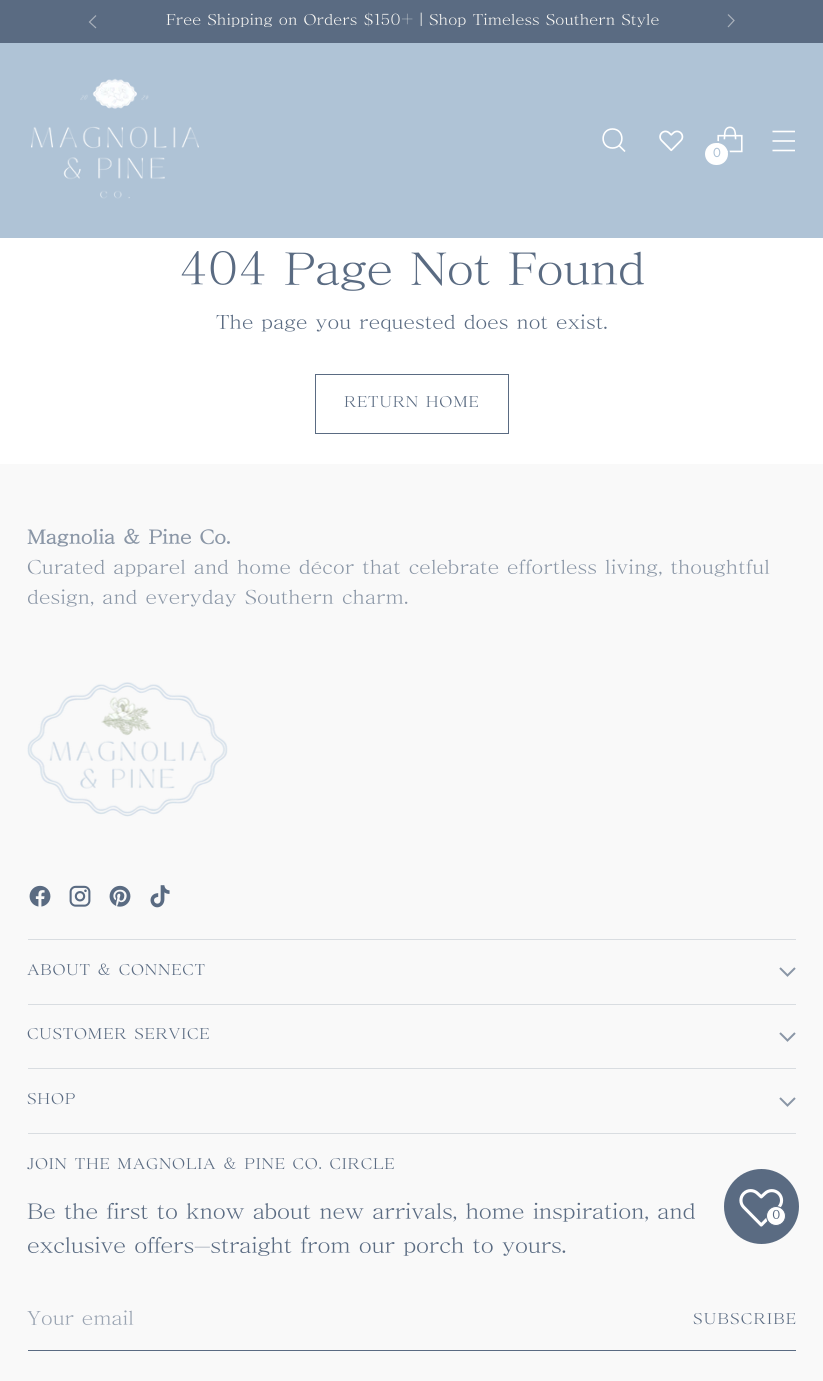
#include <cairo.h>
#include <math.h>
#include <stddef.h>


static void set_color(cairo_t *cr, unsigned color) {
    cairo_set_source_rgb(cr, (color >> 16) / 255.0, (color >> 8 & 255) / 255.0, (color & 255) / 255.0);
}

static void draw_text(cairo_t *cr, double x, double y, const char *s, const char *family, double size, int italic, int bold, unsigned color) {
    cairo_select_font_face(cr, family, italic ? CAIRO_FONT_SLANT_ITALIC : CAIRO_FONT_SLANT_NORMAL,
        bold ? CAIRO_FONT_WEIGHT_BOLD : CAIRO_FONT_WEIGHT_NORMAL);
    cairo_set_font_size(cr, size);
    set_color(cr, color);
    cairo_move_to(cr, x, y);
    cairo_show_text(cr, s);
}

static void draw_spaced(cairo_t *cr, double x, double y, const char *s, double letter, double word) {
    cairo_move_to(cr, x, y);
    while (*s) {
        char ch[5] = {0};
        int n = 0;
        do ch[n++] = *s++; while ((*s & 0xC0) == 0x80);
        cairo_show_text(cr, ch);
        cairo_rel_move_to(cr, letter + word * (*ch == ' '), 0);
    }
}

static void fill_rect(cairo_t *cr, double x, double y, double w, double h, unsigned color) {
    set_color(cr, color);
    cairo_rectangle(cr, x, y, w, h);
    cairo_fill(cr);
}

static void rounded_rect(cairo_t *cr, double x, double y, double w, double h, double r) {
    cairo_new_sub_path(cr);
    cairo_arc(cr, x + w - r, y + h - r, r, 0, M_PI / 2);
    cairo_arc(cr, x + r, y + h - r, r, M_PI / 2, M_PI);
    cairo_arc(cr, x + r, y + r, r, M_PI, 1.5 * M_PI);
    cairo_arc(cr, x + w - r, y + r, r, 1.5 * M_PI, 2 * M_PI);
    cairo_close_path(cr);
}

static void draw_image(cairo_t *cr, const char *path, double x, double y, double w, double h) {
    cairo_surface_t *image = cairo_image_surface_create_from_png(path);
    cairo_save(cr);
    cairo_set_source_surface(cr, image, x, y);
    cairo_rectangle(cr, x, y, w, h);
    cairo_fill(cr);
    cairo_restore(cr);
    cairo_surface_destroy(image);
}

int main(void) {
    cairo_surface_t *surface = cairo_image_surface_create(CAIRO_FORMAT_RGB24, 823, 1381);
    cairo_t *cr = cairo_create(surface);
    cairo_font_options_t *options = cairo_font_options_create();
    cairo_font_options_set_hint_metrics(options, CAIRO_HINT_METRICS_OFF);
    cairo_font_options_set_hint_style(options, CAIRO_HINT_STYLE_NONE);
    cairo_set_font_options(cr, options);
    cairo_set_miter_limit(cr, 4);
    set_color(cr, 0xFFFFFF);
    cairo_paint(cr);
    fill_rect(cr, 0, 0, 823, 43, 0x5A6B82);
    cairo_select_font_face(cr, "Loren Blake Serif", CAIRO_FONT_SLANT_NORMAL, CAIRO_FONT_WEIGHT_NORMAL);
    cairo_set_font_size(cr, 15.55);
    set_color(cr, 0xF8F7F4);
    draw_spaced(cr, 166, 25, "Free Shipping on Orders $150+ | Shop Timeless Southern Style", 0.08, 0);
    cairo_new_path(cr);
    cairo_move_to(cr, 96, 15.5);
    cairo_line_to(cr, 89.5, 22);
    cairo_line_to(cr, 96, 28);
    set_color(cr, 0xA9B1BB);
    cairo_set_line_width(cr, 1.2);
    cairo_stroke(cr);
    cairo_new_path(cr);
    cairo_move_to(cr, 728, 27);
    cairo_line_to(cr, 734, 20.5);
    cairo_line_to(cr, 728, 14.5);
    cairo_stroke(cr);
    fill_rect(cr, 0, 43, 823, 195, 0xAFC3D6);
    draw_image(cr, "assets/img1.png", 31, 78, 168, 121);
    cairo_new_path(cr);
    cairo_move_to(cr, 612.5, 148);
    cairo_curve_to(cr, 625, 148, 625, 129, 612.5, 129);
    cairo_curve_to(cr, 600, 129, 600, 148, 612.5, 148);
    cairo_close_path(cr);
    set_color(cr, 0xFFFFFF);
    cairo_set_line_width(cr, 1.6);
    cairo_set_line_cap(cr, CAIRO_LINE_CAP_ROUND);
    cairo_stroke(cr);
    cairo_new_path(cr);
    cairo_move_to(cr, 619, 145.5);
    cairo_line_to(cr, 625, 151.5);
    cairo_set_line_cap(cr, CAIRO_LINE_CAP_BUTT);
    cairo_stroke(cr);
    draw_image(cr, "assets/img2.png", 659, 130, 25, 22);
    draw_image(cr, "assets/img3.png", 717, 126, 26, 27);
    rounded_rect(cr, 705, 142, 24, 25, 12);
    set_color(cr, 0xAFC3D6);
    cairo_set_line_width(cr, 2);
    cairo_stroke(cr);
    set_color(cr, 0xFFFFFF);
    rounded_rect(cr, 705, 143, 23, 22, 11);
    cairo_fill(cr);
    cairo_select_font_face(cr, "JOST", CAIRO_FONT_SLANT_NORMAL, CAIRO_FONT_WEIGHT_NORMAL);
    cairo_set_font_size(cr, 13);
    set_color(cr, 0xAFC3D6);
    draw_spaced(cr, 713, 157, "0", 0.1, 0);
    cairo_new_path(cr);
    cairo_move_to(cr, 772.5, 141);
    cairo_line_to(cr, 795, 141);
    cairo_move_to(cr, 772.5, 131.5);
    cairo_line_to(cr, 795, 131.5);
    cairo_move_to(cr, 772.5, 150.5);
    cairo_line_to(cr, 795, 150.5);
    set_color(cr, 0xFFFFFF);
    cairo_set_line_width(cr, 1.6);
    cairo_stroke(cr);
    cairo_select_font_face(cr, "Loren Blake Serif", CAIRO_FONT_SLANT_NORMAL, CAIRO_FONT_WEIGHT_NORMAL);
    cairo_set_font_size(cr, 46.5);
    set_color(cr, 0x5A6B82);
    draw_spaced(cr, 179, 285, "404 Page Not Found", -0.5, 0);
    cairo_set_font_size(cr, 20);
    draw_spaced(cr, 216, 329, "The page you requested does not exist.", 0.1, 0);
    cairo_rectangle(cr, 315.5, 374.5, 193, 59);
    cairo_set_line_width(cr, 1);
    cairo_stroke(cr);
    cairo_set_font_size(cr, 15.55);
    draw_spaced(cr, 344, 407, "RETURN HOME", 0.8, 0);
    fill_rect(cr, 0, 464, 823, 917, 0xF9F9F9);
    fill_rect(cr, 28, 939, 768, 1, 0xD9DDE1);
    cairo_select_font_face(cr, "Loren Blake Serif", CAIRO_FONT_SLANT_NORMAL, CAIRO_FONT_WEIGHT_BOLD);
    cairo_set_font_size(cr, 20);
    set_color(cr, 0x8A96A6);
    draw_spaced(cr, 27, 544, "Magnolia & Pine Co.", 0.1, 0);
    cairo_select_font_face(cr, "Loren Blake Serif", CAIRO_FONT_SLANT_NORMAL, CAIRO_FONT_WEIGHT_NORMAL);
    draw_spaced(cr, 27, 574, "Curated apparel and home décor that celebrate effortless living, thoughtful", 0.1, 0);
    draw_spaced(cr, 27, 604, "design, and everyday Southern charm.", 0.1, 0);
    draw_image(cr, "assets/img4.png", 27, 682, 201, 135);
    draw_image(cr, "assets/img5.png", 29, 885, 22, 22);
    draw_image(cr, "assets/img6.png", 69, 885, 22, 22);
    draw_image(cr, "assets/img7.png", 109, 885, 22, 22);
    draw_image(cr, "assets/img8.png", 150, 885, 20, 23);
    fill_rect(cr, 28, 1004, 768, 1, 0xD9DDE1);
    cairo_set_font_size(cr, 15.55);
    set_color(cr, 0x5A6B82);
    draw_spaced(cr, 27, 975, "ABOUT & CONNECT", 0.8, 0);
    cairo_new_path(cr);
    cairo_move_to(cr, 780, 968);
    cairo_line_to(cr, 787.5, 975.5);
    cairo_line_to(cr, 795, 968);
    set_color(cr, 0x8A96A6);
    cairo_set_line_width(cr, 2);
    cairo_stroke(cr);
    fill_rect(cr, 28, 1068, 768, 1, 0xD9DDE1);
    set_color(cr, 0x5A6B82);
    draw_spaced(cr, 27, 1039, "CUSTOMER SERVICE", 0.8, 0);
    cairo_new_path(cr);
    cairo_move_to(cr, 780, 1033);
    cairo_line_to(cr, 787.5, 1040.5);
    cairo_line_to(cr, 795, 1033);
    set_color(cr, 0x8A96A6);
    cairo_stroke(cr);
    fill_rect(cr, 28, 1133, 768, 1, 0xD9DDE1);
    set_color(cr, 0x5A6B82);
    draw_spaced(cr, 27, 1104, "SHOP", 0.8, 0);
    cairo_new_path(cr);
    cairo_move_to(cr, 780, 1098);
    cairo_line_to(cr, 787.5, 1105.5);
    cairo_line_to(cr, 795, 1098);
    set_color(cr, 0x8A96A6);
    cairo_stroke(cr);
    set_color(cr, 0x5A6B82);
    draw_spaced(cr, 27, 1169, "JOIN THE MAGNOLIA & PINE CO. CIRCLE", 0.8, 0);
    cairo_set_font_size(cr, 22.25);
    draw_spaced(cr, 27, 1219, "Be the first to know about new arrivals, home inspiration, and", -0.22, 0);
    draw_spaced(cr, 27, 1253, "exclusive offers—straight from our porch to yours.", -0.22, 0);
    fill_rect(cr, 28, 1350, 768, 1, 0x5A6B82);
    draw_text(cr, 27, 1325, "Your email", "Loren Blake Serif", 20, 0, 0, 0x9AA4B2);
    cairo_set_font_size(cr, 15.55);
    set_color(cr, 0x5A6B82);
    draw_spaced(cr, 693, 1324, "SUBSCRIBE", 1.25, 0);
    cairo_new_path(cr);
    cairo_arc(cr, 761.5, 1206.5, 37.5, 0, 2 * M_PI);
    cairo_fill(cr);
    draw_image(cr, "assets/img9.png", 739, 1189, 45, 38);
    set_color(cr, 0xFFFFFF);
    cairo_arc(cr, 776, 1216, 9.5, 0, 2 * M_PI);
    cairo_fill_preserve(cr);
    set_color(cr, 0x5A6B82);
    cairo_set_line_width(cr, 1);
    cairo_stroke(cr);
    cairo_select_font_face(cr, "Loren Blake Serif", CAIRO_FONT_SLANT_NORMAL, CAIRO_FONT_WEIGHT_BOLD);
    cairo_set_font_size(cr, 12);
    draw_spaced(cr, 772, 1219, "0", 0.1, 0);
    cairo_surface_write_to_png(surface, "output.png");
    cairo_font_options_destroy(options);
    cairo_destroy(cr);
    cairo_surface_destroy(surface);
    return 0;
}
